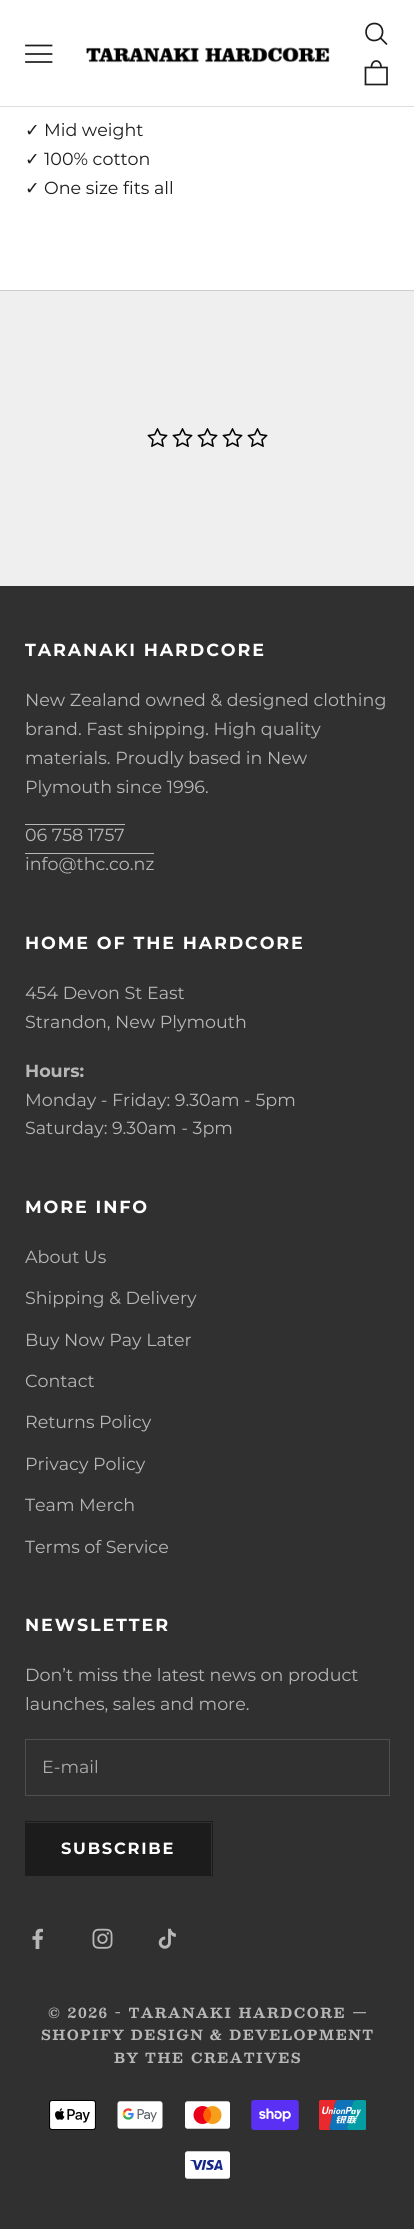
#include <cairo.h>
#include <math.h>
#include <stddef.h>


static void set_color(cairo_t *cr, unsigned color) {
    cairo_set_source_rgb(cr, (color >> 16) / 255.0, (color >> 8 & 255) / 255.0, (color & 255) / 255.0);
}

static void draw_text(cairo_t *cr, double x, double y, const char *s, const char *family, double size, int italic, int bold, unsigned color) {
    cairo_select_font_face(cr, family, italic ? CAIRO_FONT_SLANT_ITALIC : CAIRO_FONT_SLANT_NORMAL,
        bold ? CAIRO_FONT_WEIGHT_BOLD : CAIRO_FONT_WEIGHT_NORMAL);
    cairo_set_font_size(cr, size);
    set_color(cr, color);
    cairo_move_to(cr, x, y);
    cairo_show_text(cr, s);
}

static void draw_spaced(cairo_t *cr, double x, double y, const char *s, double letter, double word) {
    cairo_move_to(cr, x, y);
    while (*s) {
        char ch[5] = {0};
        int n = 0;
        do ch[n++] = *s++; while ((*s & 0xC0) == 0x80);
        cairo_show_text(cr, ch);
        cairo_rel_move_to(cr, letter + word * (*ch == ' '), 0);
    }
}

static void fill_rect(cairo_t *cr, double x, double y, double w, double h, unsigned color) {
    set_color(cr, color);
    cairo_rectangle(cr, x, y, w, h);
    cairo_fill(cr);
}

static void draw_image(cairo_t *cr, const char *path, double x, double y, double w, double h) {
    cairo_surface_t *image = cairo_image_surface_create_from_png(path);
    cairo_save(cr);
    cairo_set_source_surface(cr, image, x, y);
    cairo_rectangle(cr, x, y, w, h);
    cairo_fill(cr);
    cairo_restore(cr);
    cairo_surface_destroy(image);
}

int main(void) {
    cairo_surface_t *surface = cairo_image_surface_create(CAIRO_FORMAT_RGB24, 414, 2229);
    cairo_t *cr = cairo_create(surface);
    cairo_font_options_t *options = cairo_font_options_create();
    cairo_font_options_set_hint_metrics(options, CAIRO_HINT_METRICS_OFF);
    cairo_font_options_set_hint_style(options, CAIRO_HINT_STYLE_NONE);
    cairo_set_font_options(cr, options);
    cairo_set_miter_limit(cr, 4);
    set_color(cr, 0xEFEFEF);
    cairo_paint(cr);
    fill_rect(cr, 0, 0, 414, 290, 0xFFFFFF);
    fill_rect(cr, 0, 106, 414, 1, 0xDDDDDD);
    cairo_new_path(cr);
    cairo_move_to(cr, 26, 62);
    cairo_line_to(cr, 51.5, 62);
    cairo_move_to(cr, 26, 54);
    cairo_line_to(cr, 51.5, 54);
    cairo_move_to(cr, 26, 45.5);
    cairo_line_to(cr, 51.5, 45.5);
    set_color(cr, 0x1C1C1C);
    cairo_set_line_width(cr, 1.7);
    cairo_set_line_cap(cr, CAIRO_LINE_CAP_SQUARE);
    cairo_stroke(cr);
    draw_image(cr, "assets/img1.png", 86, 47, 244, 16);
    cairo_new_path(cr);
    cairo_move_to(cr, 374.5, 23.5);
    cairo_curve_to(cr, 363, 23.5, 363.5, 41, 374.5, 40.5);
    cairo_curve_to(cr, 385.5, 40, 385, 23.5, 374.5, 23.5);
    cairo_close_path(cr);
    cairo_set_line_cap(cr, CAIRO_LINE_CAP_BUTT);
    cairo_stroke(cr);
    cairo_new_path(cr);
    cairo_move_to(cr, 380.5, 38);
    cairo_line_to(cr, 386.5, 44);
    cairo_set_line_cap(cr, CAIRO_LINE_CAP_ROUND);
    cairo_stroke(cr);
    cairo_new_path(cr);
    cairo_move_to(cr, 387, 84.5);
    cairo_line_to(cr, 387, 67.5);
    cairo_line_to(cr, 365.5, 67.5);
    cairo_line_to(cr, 365.5, 84.5);
    cairo_close_path(cr);
    cairo_move_to(cr, 371.5, 67);
    cairo_curve_to(cr, 371.5, 59, 381, 59, 381, 67);
    cairo_set_line_cap(cr, CAIRO_LINE_CAP_BUTT);
    cairo_stroke(cr);
    draw_text(cr, 25, 136, "✓", "DejaVu Sans", 17.5, 0, 0, 0x1C1C1C);
    draw_text(cr, 44, 136, "Mid weight", "Montserrat", 17.5, 0, 0, 0x1C1C1C);
    draw_text(cr, 25, 165, "✓", "DejaVu Sans", 17.5, 0, 0, 0x1C1C1C);
    draw_text(cr, 44, 165, "100% cotton", "Montserrat", 17.5, 0, 0, 0x1C1C1C);
    draw_text(cr, 25, 194, "✓", "DejaVu Sans", 17.5, 0, 0, 0x1C1C1C);
    draw_text(cr, 44, 194, "One size fits all", "Montserrat", 17.5, 0, 0, 0x1C1C1C);
    fill_rect(cr, 0, 290, 414, 1, 0xCFCFCF);
    draw_image(cr, "assets/img2.png", 147, 428, 21, 19);
    draw_image(cr, "assets/img2.png", 172, 428, 21, 19);
    draw_image(cr, "assets/img2.png", 197, 428, 21, 19);
    draw_image(cr, "assets/img2.png", 222, 428, 21, 19);
    draw_image(cr, "assets/img2.png", 247, 428, 21, 19);
    fill_rect(cr, 0, 586, 414, 1643, 0x303030);
    cairo_select_font_face(cr, "Montserrat", CAIRO_FONT_SLANT_NORMAL, CAIRO_FONT_WEIGHT_BOLD);
    set_color(cr, 0xFFFFFF);
    draw_spaced(cr, 25, 656, "TARANAKI HARDCORE", 1.9, 0);
    draw_text(cr, 25, 706, "New Zealand owned & designed clothing", "Montserrat", 17.5, 0, 0, 0xB7B7B7);
    draw_text(cr, 25, 735, "brand. Fast shipping. High quality", "Montserrat", 17.5, 0, 0, 0xB7B7B7);
    draw_text(cr, 25, 764, "materials. Proudly based in New", "Montserrat", 17.5, 0, 0, 0xB7B7B7);
    draw_text(cr, 25, 793, "Plymouth since 1996.", "Montserrat", 17.5, 0, 0, 0xB7B7B7);
    draw_text(cr, 25, 841, "06 758 1757", "Montserrat", 17.5, 0, 0, 0xB7B7B7);
    fill_rect(cr, 25, 824, 100, 1, 0xB7B7B7);
    draw_text(cr, 25, 870, "info@thc.co.nz", "Montserrat", 17.5, 0, 0, 0xB7B7B7);
    fill_rect(cr, 25, 853, 129, 1, 0xB7B7B7);
    cairo_select_font_face(cr, "Montserrat", CAIRO_FONT_SLANT_NORMAL, CAIRO_FONT_WEIGHT_BOLD);
    set_color(cr, 0xFFFFFF);
    draw_spaced(cr, 25, 949, "HOME OF THE HARDCORE", 1.9, 0);
    draw_text(cr, 25, 999, "454 Devon St East", "Montserrat", 17.5, 0, 0, 0xB7B7B7);
    draw_text(cr, 25, 1028, "Strandon, New Plymouth", "Montserrat", 17.5, 0, 0, 0xB7B7B7);
    draw_text(cr, 25, 1077, "Hours:", "Montserrat", 17.5, 0, 1, 0xB7B7B7);
    draw_text(cr, 25, 1106, "Monday - Friday: 9.30am - 5pm", "Montserrat", 17.5, 0, 0, 0xB7B7B7);
    draw_text(cr, 25, 1134, "Saturday: 9.30am - 3pm", "Montserrat", 17.5, 0, 0, 0xB7B7B7);
    cairo_select_font_face(cr, "Montserrat", CAIRO_FONT_SLANT_NORMAL, CAIRO_FONT_WEIGHT_BOLD);
    set_color(cr, 0xFFFFFF);
    draw_spaced(cr, 25, 1213, "MORE INFO", 1.9, 0);
    draw_text(cr, 25, 1263, "About Us", "Montserrat", 17.5, 0, 0, 0xB7B7B7);
    draw_text(cr, 25, 1304, "Shipping & Delivery", "Montserrat", 17.5, 0, 0, 0xB7B7B7);
    draw_text(cr, 25, 1346, "Buy Now Pay Later", "Montserrat", 17.5, 0, 0, 0xB7B7B7);
    draw_text(cr, 25, 1387, "Contact", "Montserrat", 17.5, 0, 0, 0xB7B7B7);
    draw_text(cr, 25, 1428, "Returns Policy", "Montserrat", 17.5, 0, 0, 0xB7B7B7);
    draw_text(cr, 25, 1470, "Privacy Policy", "Montserrat", 17.5, 0, 0, 0xB7B7B7);
    draw_text(cr, 25, 1511, "Team Merch", "Montserrat", 17.5, 0, 0, 0xB7B7B7);
    draw_text(cr, 25, 1553, "Terms of Service", "Montserrat", 17.5, 0, 0, 0xB7B7B7);
    cairo_select_font_face(cr, "Montserrat", CAIRO_FONT_SLANT_NORMAL, CAIRO_FONT_WEIGHT_BOLD);
    set_color(cr, 0xFFFFFF);
    draw_spaced(cr, 25, 1631, "NEWSLETTER", 1.9, 0);
    draw_text(cr, 25, 1681, "Don’t miss the latest news on product", "Montserrat", 17.5, 0, 0, 0xB7B7B7);
    draw_text(cr, 25, 1710, "launches, sales and more.", "Montserrat", 17.5, 0, 0, 0xB7B7B7);
    cairo_rectangle(cr, 25.5, 1739.5, 364, 56);
    set_color(cr, 0x4F4F4F);
    cairo_set_line_width(cr, 1);
    cairo_stroke(cr);
    draw_text(cr, 42, 1773, "E-mail", "Montserrat", 17.5, 0, 0, 0xACACAC);
    fill_rect(cr, 26, 1823, 185, 52, 0x1C1C1C);
    cairo_rectangle(cr, 25.5, 1821.5, 187, 54);
    cairo_stroke(cr);
    cairo_select_font_face(cr, "Montserrat", CAIRO_FONT_SLANT_NORMAL, CAIRO_FONT_WEIGHT_BOLD);
    cairo_set_font_size(cr, 16.25);
    set_color(cr, 0xFFFFFF);
    draw_spaced(cr, 61, 1854, "SUBSCRIBE", 1.75, 0);
    draw_image(cr, "assets/img3.png", 32, 1928, 11, 21);
    draw_image(cr, "assets/img4.png", 92, 1928, 21, 21);
    draw_image(cr, "assets/img5.png", 158, 1928, 18, 21);
    cairo_select_font_face(cr, "Besley", CAIRO_FONT_SLANT_NORMAL, CAIRO_FONT_WEIGHT_BOLD);
    cairo_set_font_size(cr, 13.75);
    set_color(cr, 0xB7B7B7);
    draw_spaced(cr, 48, 2018, "© 2026 - TARANAKI HARDCORE —", 1.5, 0.5);
    draw_spaced(cr, 41, 2040, "SHOPIFY DESIGN & DEVELOPMENT", 1.5, 0);
    draw_spaced(cr, 114, 2063, "BY", 1.5, 0);
    draw_spaced(cr, 145, 2063, "THE CREATIVES", 1.5, 1);
    draw_image(cr, "assets/img6.png", 49, 2100, 47, 30);
    draw_image(cr, "assets/img7.png", 117, 2101, 46, 28);
    draw_image(cr, "assets/img8.png", 185, 2101, 45, 28);
    draw_image(cr, "assets/img9.png", 251, 2100, 48, 30);
    draw_image(cr, "assets/img10.png", 319, 2100, 47, 30);
    draw_image(cr, "assets/img11.png", 185, 2151, 45, 28);
    cairo_surface_write_to_png(surface, "output.png");
    cairo_font_options_destroy(options);
    cairo_destroy(cr);
    cairo_surface_destroy(surface);
    return 0;
}
